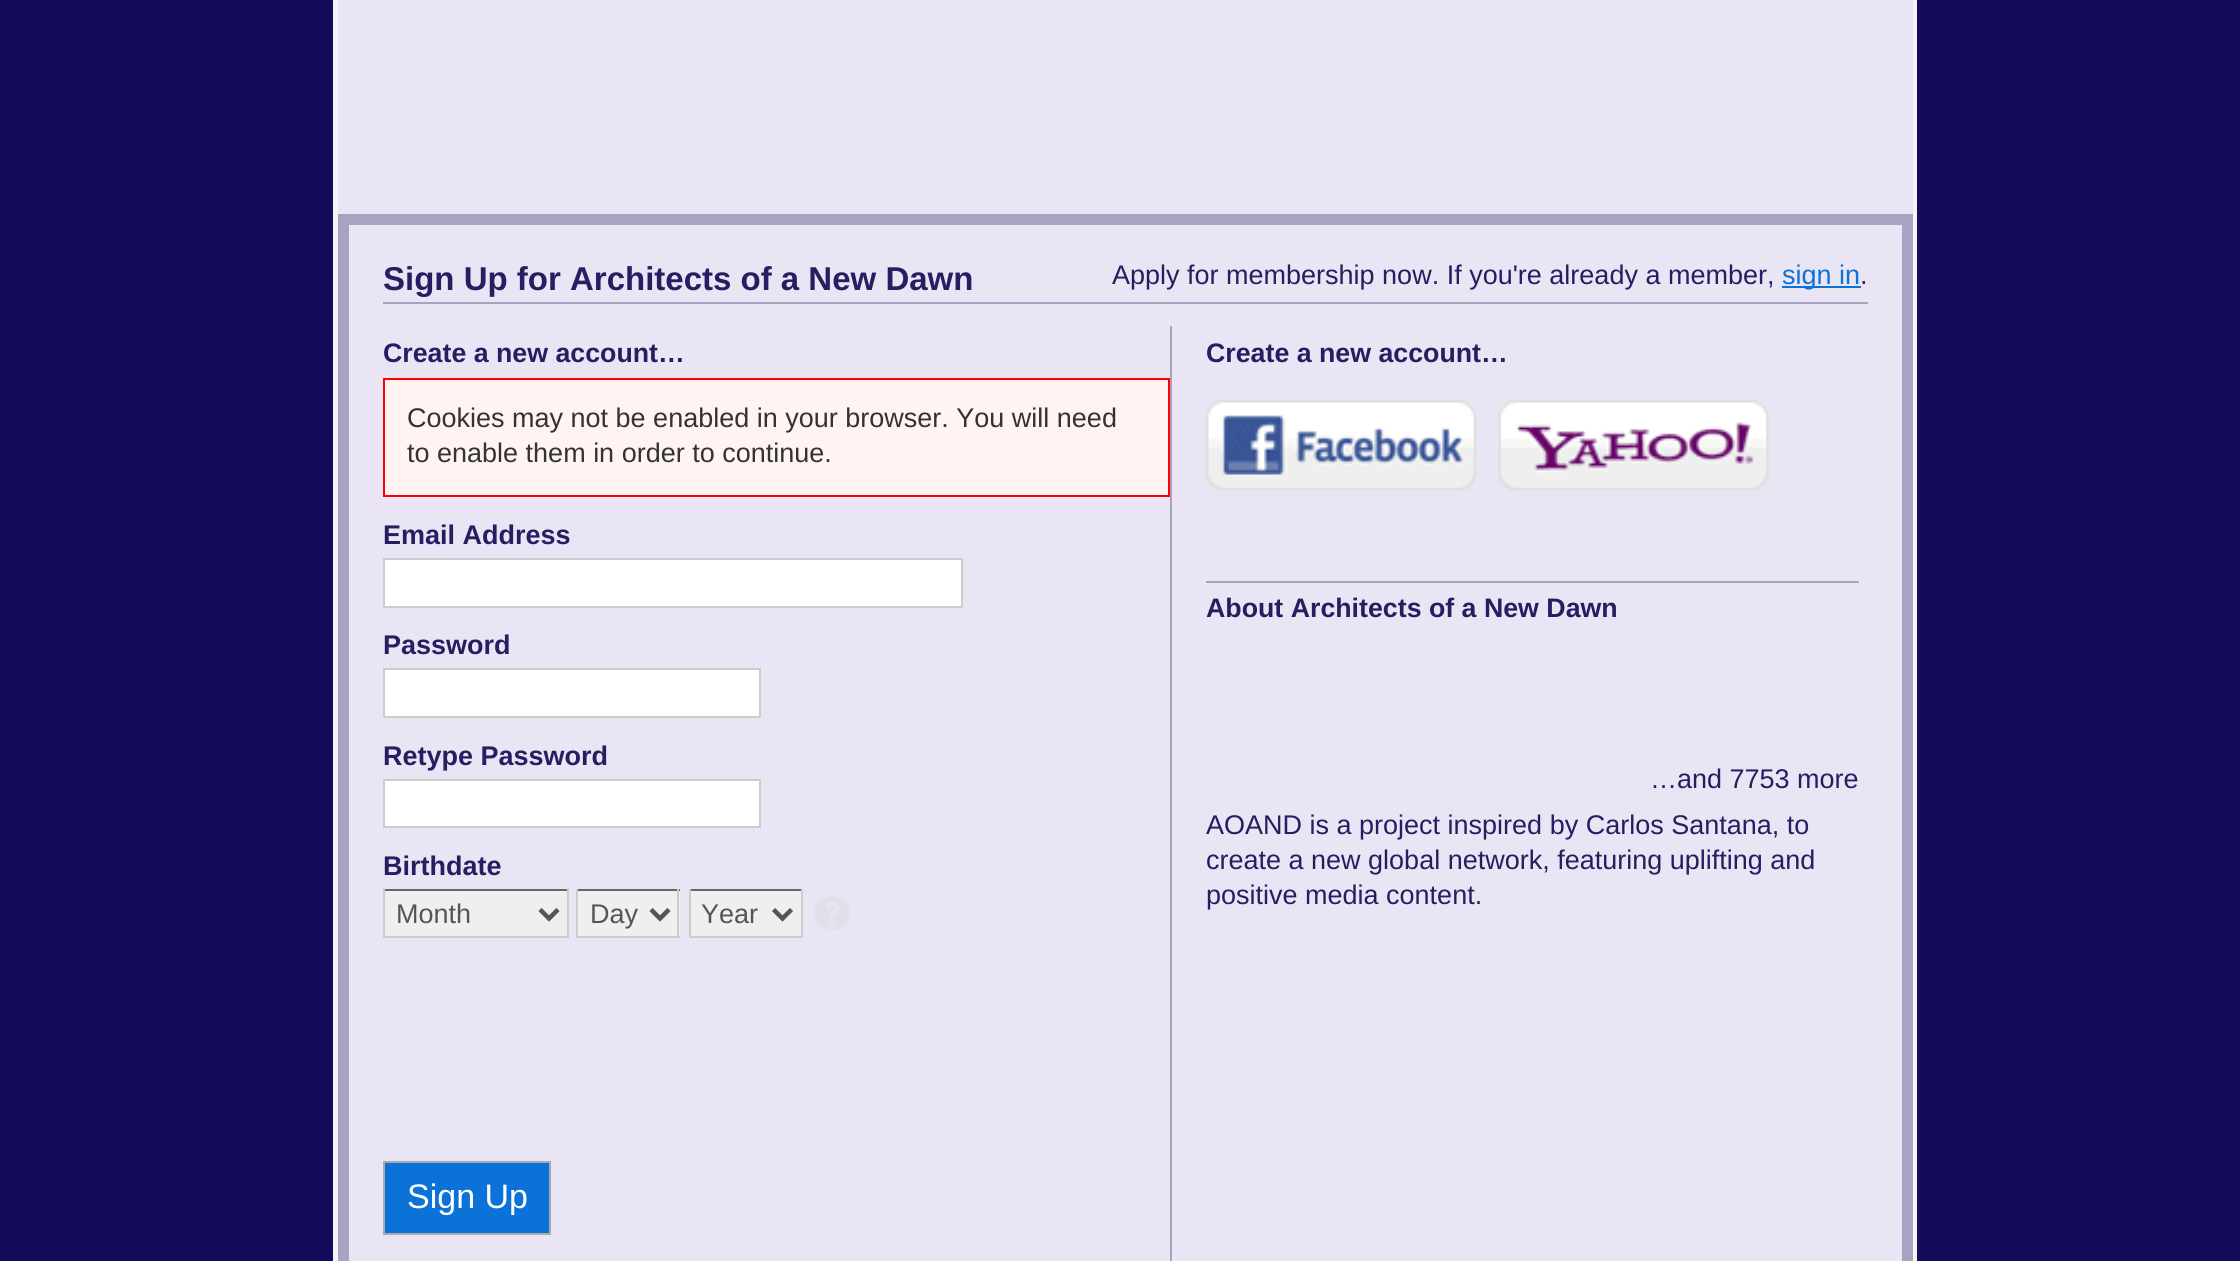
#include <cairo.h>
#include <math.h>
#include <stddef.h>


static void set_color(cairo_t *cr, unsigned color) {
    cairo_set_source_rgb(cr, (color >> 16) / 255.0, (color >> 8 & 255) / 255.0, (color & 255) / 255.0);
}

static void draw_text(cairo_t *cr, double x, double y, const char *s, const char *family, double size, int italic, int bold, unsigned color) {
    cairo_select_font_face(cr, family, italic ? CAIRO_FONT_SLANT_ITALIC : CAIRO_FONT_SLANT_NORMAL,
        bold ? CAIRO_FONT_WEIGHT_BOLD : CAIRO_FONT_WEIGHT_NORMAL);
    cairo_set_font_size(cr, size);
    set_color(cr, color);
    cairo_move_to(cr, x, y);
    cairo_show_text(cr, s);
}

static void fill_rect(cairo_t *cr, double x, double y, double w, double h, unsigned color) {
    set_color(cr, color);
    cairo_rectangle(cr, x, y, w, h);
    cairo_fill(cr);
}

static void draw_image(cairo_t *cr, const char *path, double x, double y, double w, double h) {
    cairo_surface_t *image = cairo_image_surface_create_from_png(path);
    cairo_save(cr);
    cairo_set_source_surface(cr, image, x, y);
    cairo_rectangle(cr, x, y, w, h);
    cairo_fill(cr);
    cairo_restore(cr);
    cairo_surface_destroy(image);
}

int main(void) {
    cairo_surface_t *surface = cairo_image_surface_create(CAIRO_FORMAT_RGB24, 2240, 1261);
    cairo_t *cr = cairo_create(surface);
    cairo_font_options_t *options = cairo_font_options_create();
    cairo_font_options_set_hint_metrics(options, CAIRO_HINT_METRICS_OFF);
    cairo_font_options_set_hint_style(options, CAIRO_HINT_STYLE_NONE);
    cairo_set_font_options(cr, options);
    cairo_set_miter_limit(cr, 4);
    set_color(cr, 0x140B5A);
    cairo_paint(cr);
    fill_rect(cr, 338, 0, 1575, 1261, 0xEAE5F4);
    fill_rect(cr, 1913, 0, 4, 1261, 0xF4F4F4);
    fill_rect(cr, 333, 0, 5, 1261, 0xF4F4F4);
    cairo_rectangle(cr, 343.5, 219.5, 1564, 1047);
    set_color(cr, 0xA9A3C3);
    cairo_set_line_width(cr, 11);
    cairo_stroke(cr);
    fill_rect(cr, 383, 302, 1485, 2, 0xA9A3C3);
    draw_text(cr, 383, 290, "Sign Up for Architects of a New Dawn", "Liberation Sans", 33, 0, 1, 0x271E61);
    draw_text(cr, 1112, 284, "Apply for membership now. If you're already a member,", "Liberation Sans", 27, 0, 0, 0x271E61);
    fill_rect(cr, 1782, 286, 79, 2, 0x0B72DA);
    draw_text(cr, 1782, 284, "sign in", "Liberation Sans", 27, 0, 0, 0x0B72DA);
    draw_text(cr, 1860, 284, ".", "Liberation Sans", 27, 0, 0, 0x271E61);
    fill_rect(cr, 1170, 326, 2, 935, 0xA9A3C3);
    draw_text(cr, 383, 362, "Create a new account…", "Liberation Sans", 26.75, 0, 1, 0x271E61);
    set_color(cr, 0xFFF4F2);
    cairo_rectangle(cr, 384, 379, 785, 117);
    cairo_fill_preserve(cr);
    set_color(cr, 0xFF0000);
    cairo_set_line_width(cr, 2);
    cairo_stroke(cr);
    draw_text(cr, 407, 427, "Cookies may not be enabled in your browser. You will need", "Liberation Sans", 27, 0, 0, 0x333333);
    draw_text(cr, 407, 462, "to enable them in order to continue.", "Liberation Sans", 27, 0, 0, 0x333333);
    draw_text(cr, 383, 544, "Email Address", "Liberation Sans", 27, 0, 1, 0x271E61);
    set_color(cr, 0xFFFFFF);
    cairo_rectangle(cr, 384, 559, 578, 48);
    cairo_fill_preserve(cr);
    set_color(cr, 0xCCCCCC);
    cairo_stroke(cr);
    draw_text(cr, 383, 654, "Password", "Liberation Sans", 27, 0, 1, 0x271E61);
    set_color(cr, 0xFFFFFF);
    cairo_rectangle(cr, 384, 669, 376, 48);
    cairo_fill_preserve(cr);
    set_color(cr, 0xCCCCCC);
    cairo_stroke(cr);
    draw_text(cr, 383, 765, "Retype Password", "Liberation Sans", 27, 0, 1, 0x271E61);
    set_color(cr, 0xFFFFFF);
    cairo_rectangle(cr, 384, 780, 376, 47);
    cairo_fill_preserve(cr);
    set_color(cr, 0xCCCCCC);
    cairo_stroke(cr);
    draw_text(cr, 383, 875, "Birthdate", "Liberation Sans", 27, 0, 1, 0x271E61);
    fill_rect(cr, 385, 891, 182, 45, 0xEFEFEF);
    fill_rect(cr, 383, 889, 186, 2, 0x666666);
    fill_rect(cr, 567, 889, 2, 49, 0xCCCCCC);
    fill_rect(cr, 383, 936, 186, 2, 0xCCCCCC);
    fill_rect(cr, 383, 889, 2, 49, 0xCCCCCC);
    cairo_new_path(cr);
    cairo_move_to(cr, 540, 909.5);
    cairo_line_to(cr, 549, 918.5);
    cairo_line_to(cr, 558, 909.5);
    set_color(cr, 0x555555);
    cairo_set_line_width(cr, 4.5);
    cairo_stroke(cr);
    draw_text(cr, 396, 923, "Month", "Liberation Sans", 27, 0, 0, 0x555555);
    fill_rect(cr, 578, 891, 102, 45, 0xEFEFEF);
    fill_rect(cr, 576, 889, 104, 2, 0x666666);
    fill_rect(cr, 677, 889, 2, 49, 0xCCCCCC);
    fill_rect(cr, 576, 936, 104, 2, 0xCCCCCC);
    fill_rect(cr, 576, 889, 2, 49, 0xCCCCCC);
    cairo_new_path(cr);
    cairo_move_to(cr, 651, 909.5);
    cairo_line_to(cr, 660, 918.5);
    cairo_line_to(cr, 669, 909.5);
    set_color(cr, 0x555555);
    cairo_stroke(cr);
    draw_text(cr, 590, 923, "Day", "Liberation Sans", 27, 0, 0, 0x555555);
    fill_rect(cr, 691, 891, 110, 45, 0xEFEFEF);
    fill_rect(cr, 689, 889, 114, 2, 0x666666);
    fill_rect(cr, 801, 889, 2, 49, 0xCCCCCC);
    fill_rect(cr, 689, 936, 114, 2, 0xCCCCCC);
    fill_rect(cr, 689, 889, 2, 49, 0xCCCCCC);
    cairo_new_path(cr);
    cairo_move_to(cr, 773.5, 909.5);
    cairo_line_to(cr, 782.5, 918.5);
    cairo_line_to(cr, 791.5, 909.5);
    set_color(cr, 0x555555);
    cairo_stroke(cr);
    draw_text(cr, 701, 923, "Year", "Liberation Sans", 27, 0, 0, 0x555555);
    draw_image(cr, "assets/img1.png", 814, 895, 37, 36);
    set_color(cr, 0x0B72DA);
    cairo_rectangle(cr, 384, 1162, 166, 72);
    cairo_fill_preserve(cr);
    set_color(cr, 0xAAAAAA);
    cairo_set_line_width(cr, 2);
    cairo_stroke(cr);
    draw_text(cr, 407, 1208, "Sign Up", "Liberation Sans", 34, 0, 0, 0xFFFFFF);
    draw_text(cr, 1206, 362, "Create a new account…", "Liberation Sans", 26.75, 0, 1, 0x271E61);
    fill_rect(cr, 1206, 581, 653, 2, 0xA9A3C3);
    draw_image(cr, "assets/img2.png", 1206, 400, 270, 91);
    draw_image(cr, "assets/img3.png", 1498, 400, 271, 91);
    draw_text(cr, 1206, 617, "About Architects of a New Dawn", "Liberation Sans", 26.75, 0, 1, 0x271E61);
    draw_text(cr, 1650, 788, "…and 7753 more", "Liberation Sans", 27, 0, 0, 0x271E61);
    draw_text(cr, 1206, 834, "AOAND is a project inspired by Carlos Santana, to", "Liberation Sans", 27, 0, 0, 0x271E61);
    draw_text(cr, 1206, 869, "create a new global network, featuring uplifting and", "Liberation Sans", 27, 0, 0, 0x271E61);
    draw_text(cr, 1206, 904, "positive media content.", "Liberation Sans", 27, 0, 0, 0x271E61);
    cairo_surface_write_to_png(surface, "output.png");
    cairo_font_options_destroy(options);
    cairo_destroy(cr);
    cairo_surface_destroy(surface);
    return 0;
}
